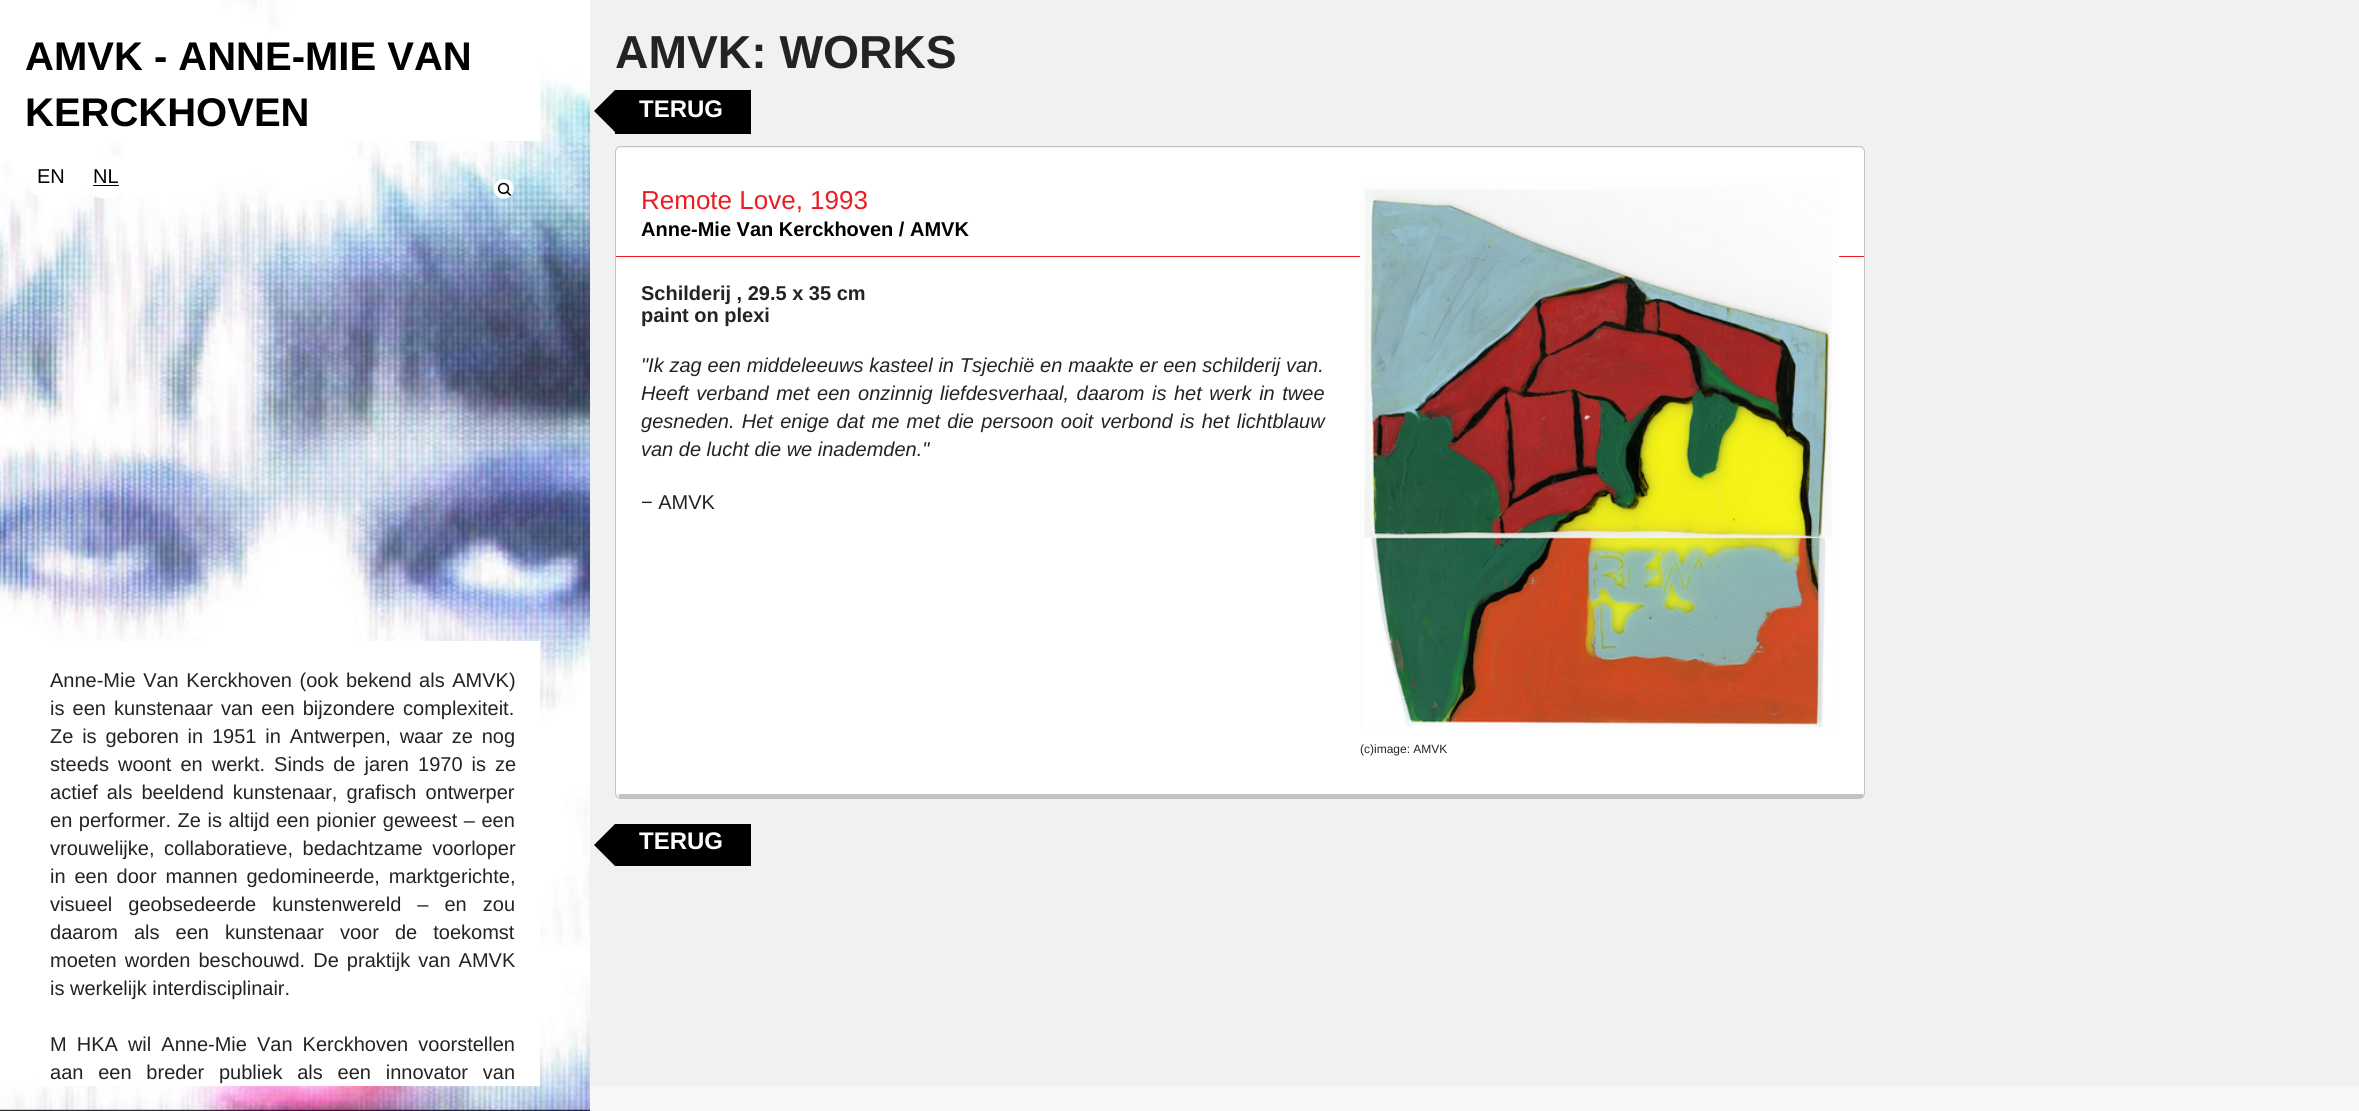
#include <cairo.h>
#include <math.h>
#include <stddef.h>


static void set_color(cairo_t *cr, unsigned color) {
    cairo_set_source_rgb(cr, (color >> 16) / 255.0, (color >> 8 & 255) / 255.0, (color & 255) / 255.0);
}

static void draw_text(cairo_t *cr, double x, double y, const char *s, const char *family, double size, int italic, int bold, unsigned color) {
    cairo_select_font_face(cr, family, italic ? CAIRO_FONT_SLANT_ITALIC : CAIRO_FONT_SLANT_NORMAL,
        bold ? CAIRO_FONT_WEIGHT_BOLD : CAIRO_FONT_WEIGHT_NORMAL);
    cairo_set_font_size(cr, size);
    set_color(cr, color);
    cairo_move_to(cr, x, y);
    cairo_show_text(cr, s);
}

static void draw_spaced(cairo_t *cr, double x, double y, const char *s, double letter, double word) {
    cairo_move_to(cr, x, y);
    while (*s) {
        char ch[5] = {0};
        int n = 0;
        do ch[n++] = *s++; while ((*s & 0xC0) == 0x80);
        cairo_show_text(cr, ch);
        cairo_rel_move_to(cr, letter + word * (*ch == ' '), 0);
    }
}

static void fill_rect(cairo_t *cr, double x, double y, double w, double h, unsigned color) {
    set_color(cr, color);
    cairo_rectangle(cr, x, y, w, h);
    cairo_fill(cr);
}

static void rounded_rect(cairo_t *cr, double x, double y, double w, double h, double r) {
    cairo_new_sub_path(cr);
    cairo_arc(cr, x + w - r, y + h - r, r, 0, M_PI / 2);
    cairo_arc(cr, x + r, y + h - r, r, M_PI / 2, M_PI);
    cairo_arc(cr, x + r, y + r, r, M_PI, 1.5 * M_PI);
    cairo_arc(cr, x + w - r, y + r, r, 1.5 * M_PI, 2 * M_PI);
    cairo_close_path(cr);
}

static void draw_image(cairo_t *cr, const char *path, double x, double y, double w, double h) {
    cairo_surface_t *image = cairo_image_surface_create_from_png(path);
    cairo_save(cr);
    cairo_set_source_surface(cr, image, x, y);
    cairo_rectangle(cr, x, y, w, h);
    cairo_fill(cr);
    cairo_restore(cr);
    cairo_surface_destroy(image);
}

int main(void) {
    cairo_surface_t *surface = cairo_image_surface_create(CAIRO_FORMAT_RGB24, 2359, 1111);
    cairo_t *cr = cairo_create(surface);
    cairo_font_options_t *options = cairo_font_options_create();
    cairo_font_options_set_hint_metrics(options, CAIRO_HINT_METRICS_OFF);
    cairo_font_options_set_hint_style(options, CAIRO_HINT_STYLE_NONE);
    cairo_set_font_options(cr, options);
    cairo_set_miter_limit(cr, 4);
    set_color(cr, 0xF7F7F7);
    cairo_paint(cr);
    draw_image(cr, "assets/img1.png", 0, 0, 590, 1111);
    fill_rect(cr, 270, 29, 270, 112, 0xFFFFFF);
    draw_text(cr, 25, 70, "AMVK - ANNE-MIE VAN", "Liberation Sans", 40, 0, 1, 0x000000);
    draw_text(cr, 25, 126, "KERCKHOVEN", "Liberation Sans", 40, 0, 1, 0x000000);
    set_color(cr, 0xFFFFFF);
    cairo_new_path(cr);
    cairo_move_to(cr, 50.5, 153.5);
    cairo_curve_to(cr, 64.5, 153.5, 76, 163.5, 76, 176);
    cairo_curve_to(cr, 76, 188.5, 64.5, 198.5, 50.5, 198.5);
    cairo_curve_to(cr, 36.5, 198.5, 25, 188.5, 25, 176);
    cairo_curve_to(cr, 25, 163.5, 36.5, 153.5, 50.5, 153.5);
    cairo_close_path(cr);
    cairo_fill(cr);
    draw_text(cr, 37, 183, "EN", "Liberation Sans", 20, 0, 0, 0x000000);
    set_color(cr, 0xFFFFFF);
    cairo_new_path(cr);
    cairo_move_to(cr, 105.5, 153.5);
    cairo_curve_to(cr, 119, 153.5, 130, 163.5, 130, 176);
    cairo_curve_to(cr, 130, 188.5, 119, 198.5, 105.5, 198.5);
    cairo_curve_to(cr, 92, 198.5, 81, 188.5, 81, 176);
    cairo_curve_to(cr, 81, 163.5, 92, 153.5, 105.5, 153.5);
    cairo_close_path(cr);
    cairo_fill(cr);
    draw_text(cr, 93, 183, "NL", "Liberation Sans", 20, 0, 0, 0x000000);
    fill_rect(cr, 93, 185, 26, 1, 0x000000);
    draw_image(cr, "assets/img2.png", 493, 178, 21, 21);
    fill_rect(cr, 40, 641, 500, 445, 0xFFFFFF);
    set_color(cr, 0x232323);
    draw_spaced(cr, 50, 687, "Anne-Mie Van Kerckhoven (ook bekend als AMVK)", 0, 2);
    draw_spaced(cr, 50, 715, "is een kunstenaar van een bijzondere complexiteit.", 0, 2.5);
    draw_spaced(cr, 50, 743, "Ze is geboren in 1951 in Antwerpen, waar ze nog", 0, 3.25);
    draw_spaced(cr, 50, 771, "steeds woont en werkt. Sinds de jaren 1970 is ze", 0, 3.5);
    draw_spaced(cr, 50, 799, "actief als beeldend kunstenaar, grafisch ontwerper", 0, 3.5);
    draw_spaced(cr, 50, 827, "en performer. Ze is altijd een pionier geweest – een", 0, 1);
    draw_spaced(cr, 50, 855, "vrouwelijke, collaboratieve, bedachtzame voorloper", 0, 4);
    draw_spaced(cr, 50, 883, "in een door mannen gedomineerde, marktgerichte,", 0, 3.25);
    draw_spaced(cr, 50, 911, "visueel geobsedeerde kunstenwereld – en zou", 0, 10.5);
    draw_spaced(cr, 50, 939, "daarom als een kunstenaar voor de toekomst", 0, 10.5);
    draw_spaced(cr, 50, 967, "moeten worden beschouwd. De praktijk van AMVK", 0, 2.5);
    draw_text(cr, 50, 995, "is werkelijk interdisciplinair.", "Liberation Sans", 20, 0, 0, 0x232323);
    draw_spaced(cr, 50, 1051, "M HKA wil Anne-Mie Van Kerckhoven voorstellen", 0, 4.5);
    draw_spaced(cr, 50, 1079, "aan een breder publiek als een innovator van", 0, 9.25);
    fill_rect(cr, 590, 0, 1769, 1086, 0xF1F1F1);
    draw_text(cr, 615, 68, "AMVK: WORKS", "Liberation Sans", 46.25, 0, 1, 0x232323);
    fill_rect(cr, 615, 90, 136, 44, 0x000000);
    cairo_new_path(cr);
    cairo_move_to(cr, 615, 90);
    cairo_line_to(cr, 615, 132);
    cairo_line_to(cr, 594, 111);
    cairo_close_path(cr);
    cairo_fill(cr);
    draw_text(cr, 639, 117, "TERUG", "Liberation Sans", 24, 0, 1, 0xFFFFFF);
    cairo_new_path(cr);
    cairo_move_to(cr, 621, 148);
    cairo_line_to(cr, 1859, 148);
    cairo_curve_to(cr, 1862, 148, 1864, 150, 1864, 152);
    cairo_line_to(cr, 1864, 792);
    cairo_curve_to(cr, 1864, 793, 1862, 794, 1859, 794);
    cairo_line_to(cr, 621, 794);
    cairo_curve_to(cr, 618, 794, 616, 793, 616, 792);
    cairo_line_to(cr, 616, 152);
    cairo_curve_to(cr, 616, 150, 618, 148, 621, 148);
    cairo_close_path(cr);
    cairo_fill(cr);
    rounded_rect(cr, 615.5, 146.5, 1249, 652, 5.5);
    set_color(cr, 0xC3C3C3);
    cairo_set_line_width(cr, 1);
    cairo_stroke(cr);
    fill_rect(cr, 619, 794, 1244, 4, 0xC3C3C3);
    fill_rect(cr, 616, 256, 1248, 1, 0xEC1C24);
    draw_text(cr, 641, 209, "Remote Love, 1993", "Liberation Sans", 26, 0, 0, 0xEC1C24);
    draw_text(cr, 641, 236, "Anne-Mie Van Kerckhoven / AMVK", "Liberation Sans", 20, 0, 1, 0x000000);
    draw_text(cr, 641, 300, "Schilderij , 29.5 x 35 cm", "Liberation Sans", 20, 0, 1, 0x232323);
    draw_text(cr, 641, 322, "paint on plexi", "Liberation Sans", 20, 0, 1, 0x232323);
    cairo_select_font_face(cr, "Liberation Sans", CAIRO_FONT_SLANT_ITALIC, CAIRO_FONT_WEIGHT_NORMAL);
    draw_spaced(cr, 641, 372, "\"Ik zag een middeleeuws kasteel in Tsjechië en maakte er een schilderij van.", 0, 0.25);
    draw_spaced(cr, 641, 400, "Heeft verband met een onzinnig liefdesverhaal, daarom is het werk in twee", 0, 2);
    draw_spaced(cr, 641, 428, "gesneden. Het enige dat me met die persoon ooit verbond is het lichtblauw", 0, 1.75);
    draw_text(cr, 641, 456, "van de lucht die we inademden.\"", "Liberation Sans", 20, 1, 0, 0x232323);
    draw_text(cr, 641, 509, "− AMVK", "Liberation Sans", 20, 0, 0, 0x232323);
    set_color(cr, 0xFDFDFD);
    cairo_new_path(cr);
    cairo_move_to(cr, 1362.5, 183);
    cairo_line_to(cr, 1836.5, 183);
    cairo_curve_to(cr, 1838, 183, 1839, 184, 1839, 185.5);
    cairo_line_to(cr, 1839, 736);
    cairo_line_to(cr, 1360, 736);
    cairo_line_to(cr, 1360, 185.5);
    cairo_curve_to(cr, 1360, 184, 1361, 183, 1362.5, 183);
    cairo_close_path(cr);
    cairo_fill(cr);
    draw_image(cr, "assets/img3.png", 1364, 189, 468, 538);
    draw_text(cr, 1360, 753, "(c)image: AMVK", "Liberation Sans", 12, 0, 0, 0x232323);
    fill_rect(cr, 615, 824, 136, 42, 0x000000);
    cairo_new_path(cr);
    cairo_move_to(cr, 615, 824);
    cairo_line_to(cr, 615, 866);
    cairo_line_to(cr, 594, 845);
    cairo_close_path(cr);
    cairo_fill(cr);
    draw_text(cr, 639, 849, "TERUG", "Liberation Sans", 24, 0, 1, 0xFFFFFF);
    cairo_surface_write_to_png(surface, "output.png");
    cairo_font_options_destroy(options);
    cairo_destroy(cr);
    cairo_surface_destroy(surface);
    return 0;
}
